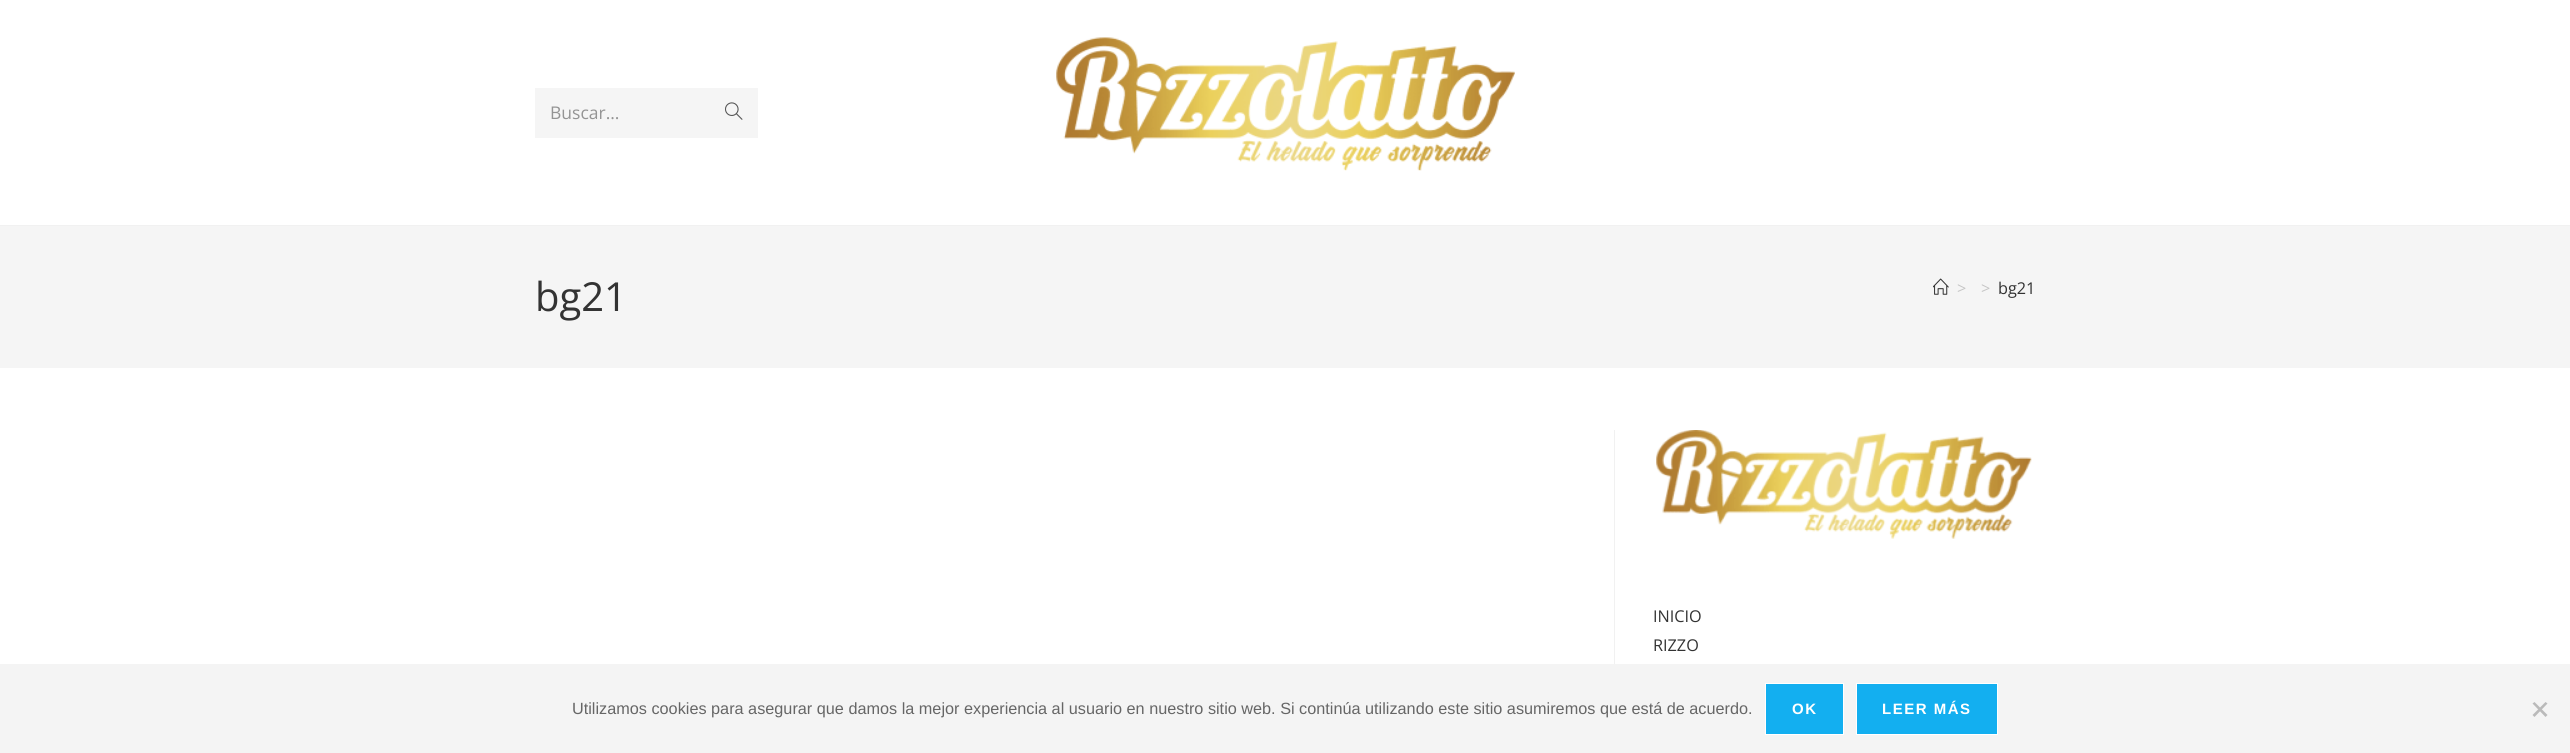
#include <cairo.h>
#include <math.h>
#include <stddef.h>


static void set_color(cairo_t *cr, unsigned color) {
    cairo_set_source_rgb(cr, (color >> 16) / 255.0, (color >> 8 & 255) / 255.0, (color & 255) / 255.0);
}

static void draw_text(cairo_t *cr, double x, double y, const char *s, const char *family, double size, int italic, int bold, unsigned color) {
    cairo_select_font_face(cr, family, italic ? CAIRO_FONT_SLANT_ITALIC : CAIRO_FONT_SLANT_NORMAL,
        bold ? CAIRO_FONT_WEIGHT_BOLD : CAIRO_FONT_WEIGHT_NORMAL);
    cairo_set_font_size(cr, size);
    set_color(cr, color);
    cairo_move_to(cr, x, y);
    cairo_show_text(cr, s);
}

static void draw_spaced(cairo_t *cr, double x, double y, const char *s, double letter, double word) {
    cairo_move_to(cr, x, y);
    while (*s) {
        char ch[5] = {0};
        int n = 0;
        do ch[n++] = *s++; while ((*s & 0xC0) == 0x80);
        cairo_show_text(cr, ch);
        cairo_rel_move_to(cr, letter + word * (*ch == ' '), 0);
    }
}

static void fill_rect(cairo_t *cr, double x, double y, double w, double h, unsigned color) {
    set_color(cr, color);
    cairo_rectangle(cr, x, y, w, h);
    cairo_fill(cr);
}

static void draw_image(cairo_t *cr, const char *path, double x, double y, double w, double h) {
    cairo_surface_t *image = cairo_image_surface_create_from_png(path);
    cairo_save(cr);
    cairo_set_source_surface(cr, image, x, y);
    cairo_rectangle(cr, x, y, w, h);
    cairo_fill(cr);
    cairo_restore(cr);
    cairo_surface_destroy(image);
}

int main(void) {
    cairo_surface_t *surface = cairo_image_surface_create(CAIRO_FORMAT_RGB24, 2570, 753);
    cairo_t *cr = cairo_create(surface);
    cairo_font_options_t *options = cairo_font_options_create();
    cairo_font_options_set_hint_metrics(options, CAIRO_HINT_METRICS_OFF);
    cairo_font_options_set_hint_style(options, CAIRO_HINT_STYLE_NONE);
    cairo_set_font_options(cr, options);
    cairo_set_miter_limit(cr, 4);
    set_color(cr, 0xFFFFFF);
    cairo_paint(cr);
    fill_rect(cr, 0, 225, 2570, 1, 0xF1F1F1);
    fill_rect(cr, 535, 88, 223, 50, 0xF5F5F5);
    draw_text(cr, 550, 119, "Buscar...", "Open Sans", 17.5, 0, 0, 0x949494);
    draw_image(cr, "assets/img1.png", 725, 102, 18, 18);
    draw_image(cr, "assets/img2.png", 1056, 37, 459, 134);
    fill_rect(cr, 0, 226, 2570, 142, 0xF5F5F5);
    draw_text(cr, 535, 311, "bg21", "Open Sans", 40, 0, 0, 0x333333);
    draw_image(cr, "assets/img3.png", 1933, 278, 16, 17);
    draw_text(cr, 1957, 294, ">", "Open Sans", 16.25, 0, 0, 0xC6C6C6);
    draw_text(cr, 1981, 294, ">", "Open Sans", 16.25, 0, 0, 0xC6C6C6);
    draw_text(cr, 1998, 294, "bg21", "Open Sans", 16.25, 0, 0, 0x333333);
    fill_rect(cr, 1614, 430, 1, 234, 0xF1F1F1);
    draw_image(cr, "assets/img4.png", 1656, 430, 376, 109);
    draw_text(cr, 1653, 622, "INICIO", "Open Sans", 16.25, 0, 0, 0x333333);
    draw_text(cr, 1653, 651, "RIZZO", "Open Sans", 16.25, 0, 0, 0x333333);
    fill_rect(cr, 0, 664, 2570, 89, 0xF4F4F4);
    draw_text(cr, 572, 714, "Utilizamos cookies para asegurar que damos la mejor experiencia al usuario en nuestro sitio web. Si continúa utilizando este sitio asumiremos que está de acuerdo.", "Liberation Sans", 16.25, 0, 0, 0x666666);
    set_color(cr, 0x13AFF0);
    cairo_rectangle(cr, 1765.5, 683.5, 78, 51);
    cairo_fill_preserve(cr);
    set_color(cr, 0xFFFFFF);
    cairo_set_line_width(cr, 1);
    cairo_stroke(cr);
    cairo_select_font_face(cr, "Liberation Sans", CAIRO_FONT_SLANT_NORMAL, CAIRO_FONT_WEIGHT_BOLD);
    cairo_set_font_size(cr, 15);
    draw_spaced(cr, 1792, 714, "OK", 1.5, 0);
    set_color(cr, 0x13AFF0);
    cairo_rectangle(cr, 1856.5, 683.5, 141, 51);
    cairo_fill_preserve(cr);
    set_color(cr, 0xFFFFFF);
    cairo_stroke(cr);
    draw_spaced(cr, 1882, 714, "LEER MÁS", 1.5, 0);
    set_color(cr, 0xBABABA);
    cairo_new_path(cr);
    cairo_move_to(cr, 2545.5, 702);
    cairo_line_to(cr, 2547.5, 703.5);
    cairo_line_to(cr, 2534.5, 717);
    cairo_line_to(cr, 2532.5, 715);
    cairo_close_path(cr);
    cairo_fill(cr);
    cairo_new_path(cr);
    cairo_move_to(cr, 2532.5, 703.5);
    cairo_line_to(cr, 2534.5, 702);
    cairo_line_to(cr, 2547.5, 715);
    cairo_line_to(cr, 2545.5, 717);
    cairo_close_path(cr);
    cairo_fill(cr);
    cairo_surface_write_to_png(surface, "output.png");
    cairo_font_options_destroy(options);
    cairo_destroy(cr);
    cairo_surface_destroy(surface);
    return 0;
}
